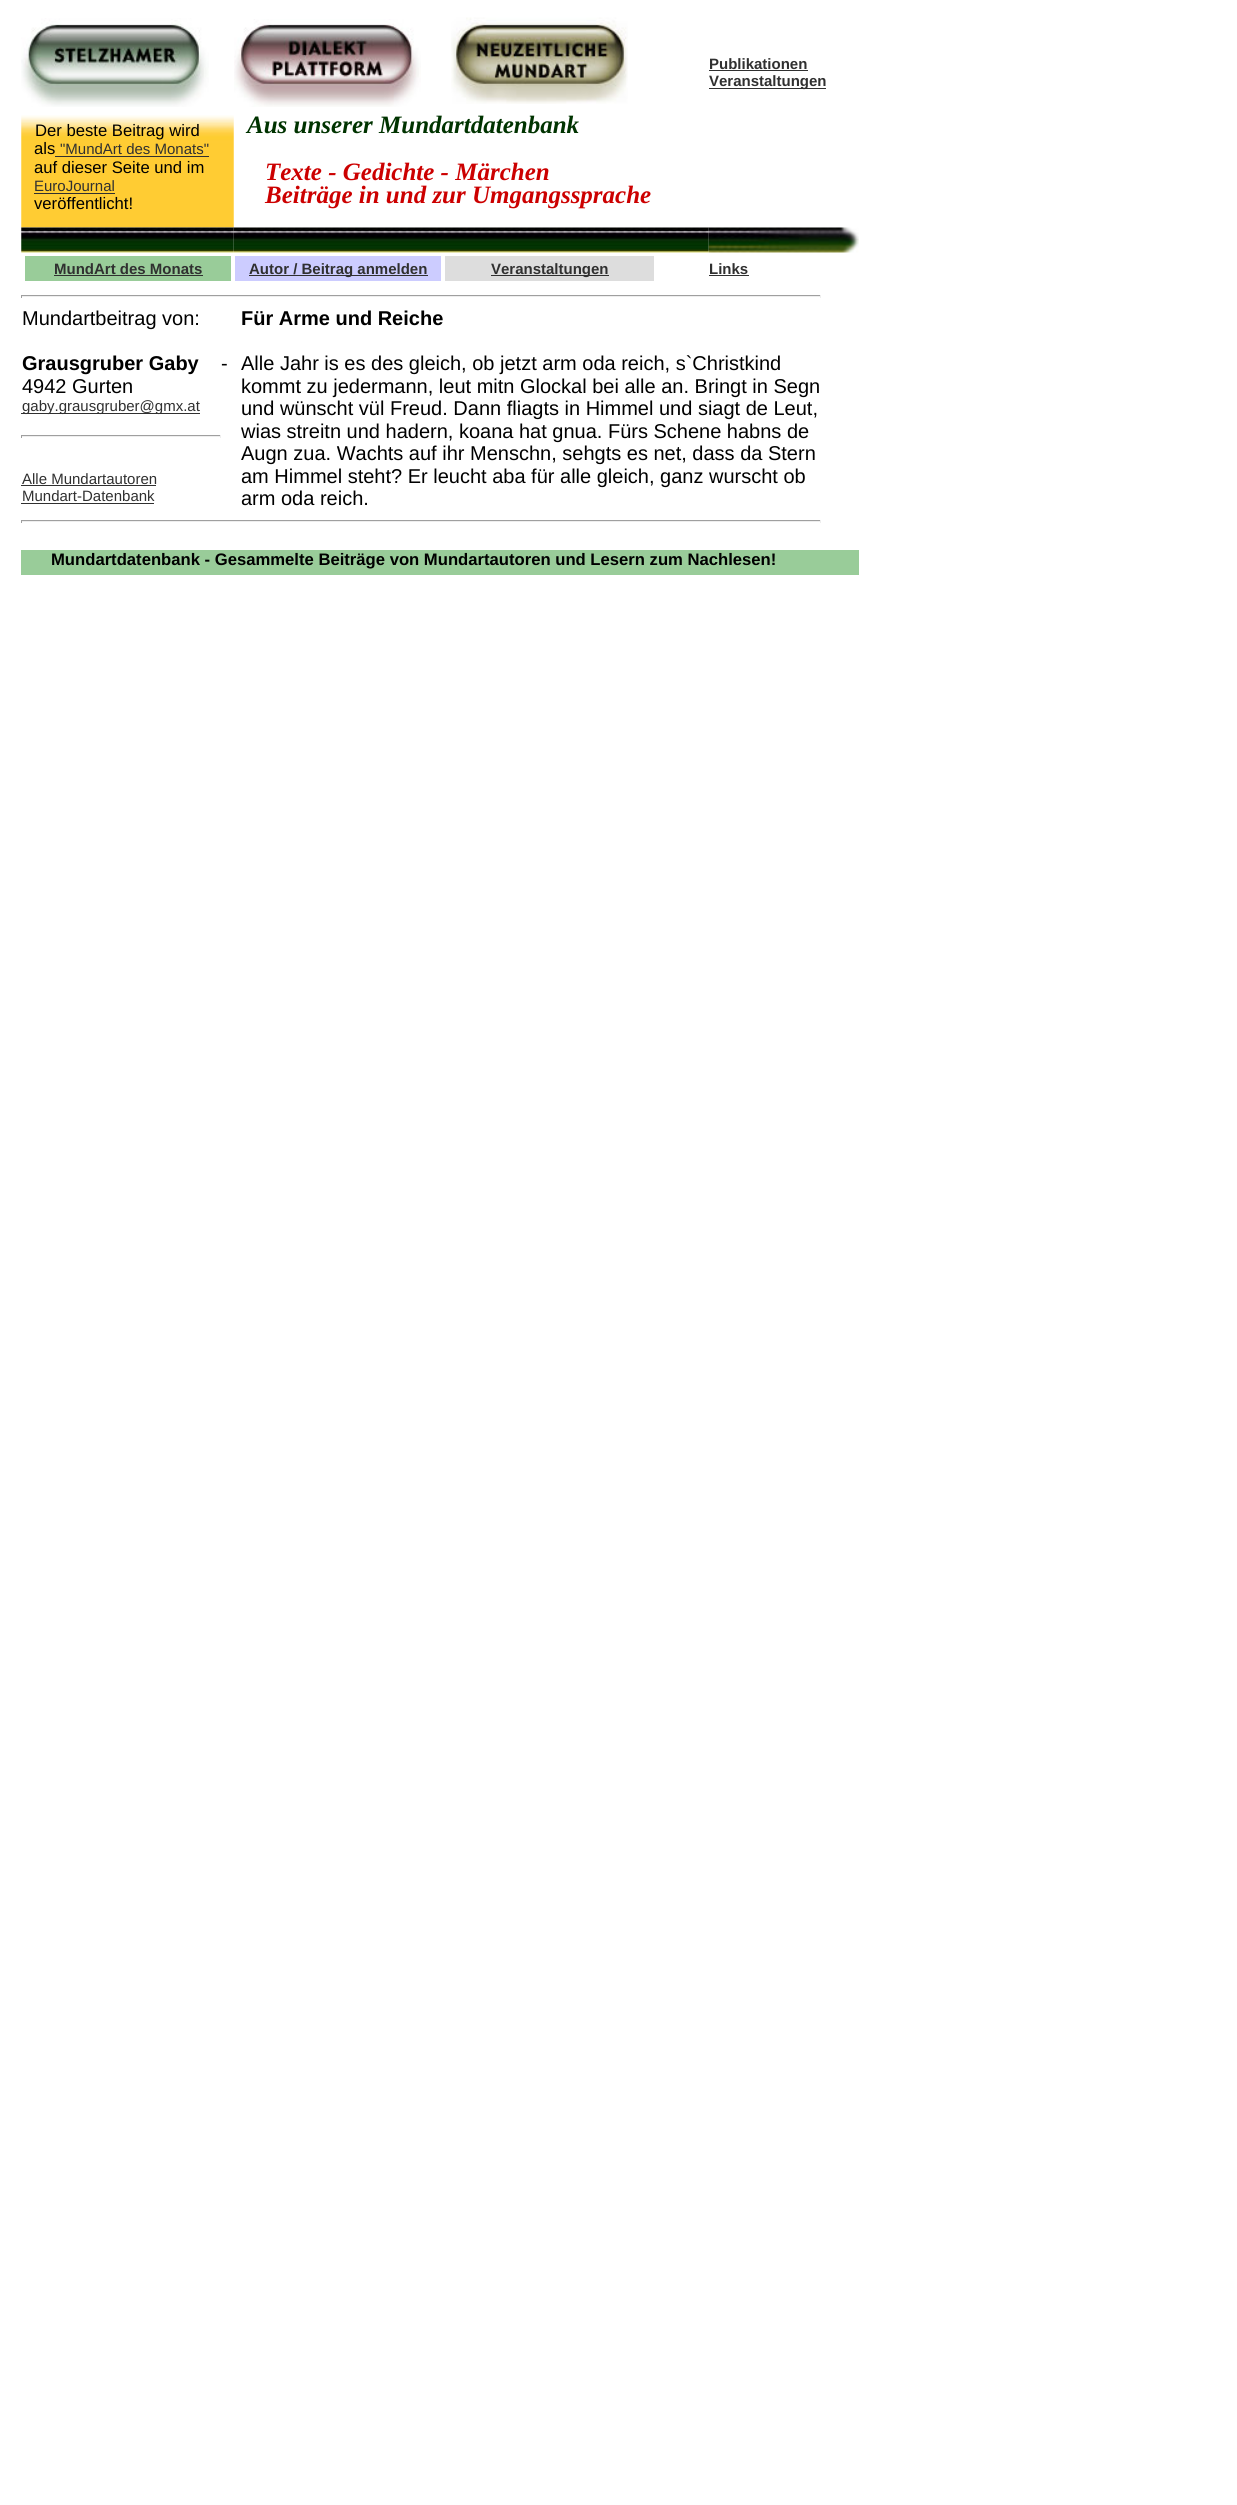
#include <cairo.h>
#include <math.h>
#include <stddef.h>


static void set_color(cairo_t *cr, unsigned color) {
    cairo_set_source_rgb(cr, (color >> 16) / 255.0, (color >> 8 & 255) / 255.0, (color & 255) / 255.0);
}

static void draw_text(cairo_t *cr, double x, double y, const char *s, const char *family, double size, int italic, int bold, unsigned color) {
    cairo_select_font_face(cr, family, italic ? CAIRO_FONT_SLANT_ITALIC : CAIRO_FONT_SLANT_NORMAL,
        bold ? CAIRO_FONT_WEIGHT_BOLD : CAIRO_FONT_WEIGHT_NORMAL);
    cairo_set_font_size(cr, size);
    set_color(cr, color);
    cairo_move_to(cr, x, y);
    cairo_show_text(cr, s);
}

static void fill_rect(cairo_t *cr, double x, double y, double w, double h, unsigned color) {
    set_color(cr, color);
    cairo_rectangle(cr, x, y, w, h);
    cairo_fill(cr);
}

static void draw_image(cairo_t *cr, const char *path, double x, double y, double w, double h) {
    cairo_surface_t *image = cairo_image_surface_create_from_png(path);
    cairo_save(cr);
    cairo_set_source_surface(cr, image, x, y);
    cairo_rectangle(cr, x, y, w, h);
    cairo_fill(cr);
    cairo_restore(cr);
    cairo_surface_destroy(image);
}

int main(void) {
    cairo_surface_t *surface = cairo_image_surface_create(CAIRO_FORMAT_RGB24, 1237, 2505);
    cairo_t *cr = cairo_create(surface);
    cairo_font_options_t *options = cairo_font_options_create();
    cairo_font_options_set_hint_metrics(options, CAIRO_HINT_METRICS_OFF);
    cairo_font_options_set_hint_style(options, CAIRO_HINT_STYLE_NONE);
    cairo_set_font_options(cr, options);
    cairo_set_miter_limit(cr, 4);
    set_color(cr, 0xFFFFFF);
    cairo_paint(cr);
    draw_image(cr, "assets/img1.png", 21, 18, 188, 89);
    draw_image(cr, "assets/img2.png", 234, 19, 187, 88);
    draw_image(cr, "assets/img3.png", 451, 17, 177, 87);
    draw_text(cr, 709, 69, "Publikationen", "Liberation Sans", 15, 0, 1, 0x303030);
    fill_rect(cr, 709, 70, 99, 1, 0x303030);
    fill_rect(cr, 709, 88, 117, 1, 0x303030);
    draw_text(cr, 709, 86, "Veranstaltungen", "Liberation Sans", 15, 0, 1, 0x303030);
    draw_image(cr, "assets/img4.png", 21, 115, 213, 113);
    draw_text(cr, 35, 136, "Der beste Beitrag wird", "Liberation Sans", 16.65, 0, 0, 0x000000);
    draw_text(cr, 34, 154, "als", "Liberation Sans", 16.65, 0, 0, 0x000000);
    draw_text(cr, 60, 154, "\"MundArt des Monats\"", "Liberation Sans", 15, 0, 0, 0x303030);
    fill_rect(cr, 55, 156, 154, 1, 0x303030);
    draw_text(cr, 34, 173, "auf dieser Seite und im", "Liberation Sans", 16.65, 0, 0, 0x000000);
    draw_text(cr, 34, 191, "EuroJournal", "Liberation Sans", 15, 0, 0, 0x303030);
    fill_rect(cr, 34, 193, 81, 1, 0x303030);
    draw_text(cr, 34, 209, "veröffentlicht!", "Liberation Sans", 16.65, 0, 0, 0x000000);
    draw_text(cr, 247, 133, "Aus unserer Mundartdatenbank", "Liberation Serif", 25, 1, 1, 0x003300);
    draw_text(cr, 265, 180, "Texte - Gedichte - Märchen", "Liberation Serif", 25, 1, 1, 0xCC0000);
    draw_text(cr, 265, 203, "Beiträge in und zur Umgangssprache", "Liberation Serif", 25, 1, 1, 0xCC0000);
    draw_image(cr, "assets/img5.png", 21, 227, 213, 26);
    draw_image(cr, "assets/img6.png", 233, 227, 476, 26);
    draw_image(cr, "assets/img7.png", 708, 227, 151, 26);
    fill_rect(cr, 25, 256, 206, 25, 0x99CC99);
    draw_text(cr, 54, 274, "MundArt des Monats", "Liberation Sans", 15, 0, 1, 0x303030);
    fill_rect(cr, 54, 275, 149, 1, 0x303030);
    fill_rect(cr, 235, 256, 206, 25, 0xCCCCFF);
    fill_rect(cr, 249, 275, 179, 1, 0x303030);
    draw_text(cr, 249, 274, "Autor / Beitrag anmelden", "Liberation Sans", 15, 0, 1, 0x303030);
    fill_rect(cr, 445, 256, 209, 25, 0xDDDDDD);
    fill_rect(cr, 491, 275, 118, 1, 0x303030);
    draw_text(cr, 491, 274, "Veranstaltungen", "Liberation Sans", 15, 0, 1, 0x303030);
    draw_text(cr, 709, 274, "Links", "Liberation Sans", 15, 0, 1, 0x303030);
    fill_rect(cr, 709, 275, 40, 1, 0x303030);
    fill_rect(cr, 21, 295, 800, 1, 0x9F9F9F);
    fill_rect(cr, 820, 295, 1, 3, 0xEEEEEE);
    fill_rect(cr, 21, 296, 800, 1, 0xEEEEEE);
    fill_rect(cr, 21, 295, 1, 3, 0x9F9F9F);
    draw_text(cr, 22, 325, "Mundartbeitrag von:", "Liberation Sans", 20, 0, 0, 0x000000);
    draw_text(cr, 22, 370, "Grausgruber Gaby", "Liberation Sans", 20, 0, 1, 0x000000);
    draw_text(cr, 221, 370, "-", "Liberation Sans", 20, 0, 0, 0x000000);
    draw_text(cr, 22, 393, "4942 Gurten", "Liberation Sans", 20, 0, 0, 0x000000);
    fill_rect(cr, 21, 413, 179, 1, 0x303030);
    draw_text(cr, 22, 411, "gaby.grausgruber@gmx.at", "Liberation Sans", 15, 0, 0, 0x303030);
    fill_rect(cr, 21, 435, 200, 1, 0x9F9F9F);
    fill_rect(cr, 220, 435, 1, 3, 0xEEEEEE);
    fill_rect(cr, 21, 436, 200, 1, 0xEEEEEE);
    fill_rect(cr, 21, 435, 1, 3, 0x9F9F9F);
    draw_text(cr, 22, 484, "Alle Mundartautoren", "Liberation Sans", 15, 0, 0, 0x303030);
    fill_rect(cr, 21, 485, 135, 1, 0x303030);
    draw_text(cr, 22, 501, "Mundart-Datenbank", "Liberation Sans", 15, 0, 0, 0x303030);
    fill_rect(cr, 21, 503, 133, 1, 0x303030);
    draw_text(cr, 241, 325, "Für Arme und Reiche", "Liberation Sans", 20, 0, 1, 0x000000);
    draw_text(cr, 241, 370, "Alle Jahr is es des gleich, ob jetzt arm oda reich, s`Christkind", "Liberation Sans", 20, 0, 0, 0x000000);
    draw_text(cr, 241, 393, "kommt zu jedermann, leut mitn Glockal bei alle an. Bringt in Segn", "Liberation Sans", 20, 0, 0, 0x000000);
    draw_text(cr, 241, 415, "und wünscht vül Freud. Dann fliagts in Himmel und siagt de Leut,", "Liberation Sans", 20, 0, 0, 0x000000);
    draw_text(cr, 241, 438, "wias streitn und hadern, koana hat gnua. Fürs Schene habns de", "Liberation Sans", 20, 0, 0, 0x000000);
    draw_text(cr, 241, 460, "Augn zua. Wachts auf ihr Menschn, sehgts es net, dass da Stern", "Liberation Sans", 20, 0, 0, 0x000000);
    draw_text(cr, 241, 483, "am Himmel steht? Er leucht aba für alle gleich, ganz wurscht ob", "Liberation Sans", 20, 0, 0, 0x000000);
    draw_text(cr, 241, 505, "arm oda reich.", "Liberation Sans", 20, 0, 0, 0x000000);
    fill_rect(cr, 21, 520, 800, 1, 0x9F9F9F);
    fill_rect(cr, 820, 520, 1, 3, 0xEEEEEE);
    fill_rect(cr, 21, 521, 800, 1, 0xEEEEEE);
    fill_rect(cr, 21, 520, 1, 3, 0x9F9F9F);
    fill_rect(cr, 21, 550, 838, 25, 0x99CC99);
    draw_text(cr, 51, 565, "Mundartdatenbank - Gesammelte Beiträge von Mundartautoren und Lesern zum Nachlesen!", "Liberation Sans", 16.65, 0, 1, 0x000000);
    cairo_surface_write_to_png(surface, "output.png");
    cairo_font_options_destroy(options);
    cairo_destroy(cr);
    cairo_surface_destroy(surface);
    return 0;
}
